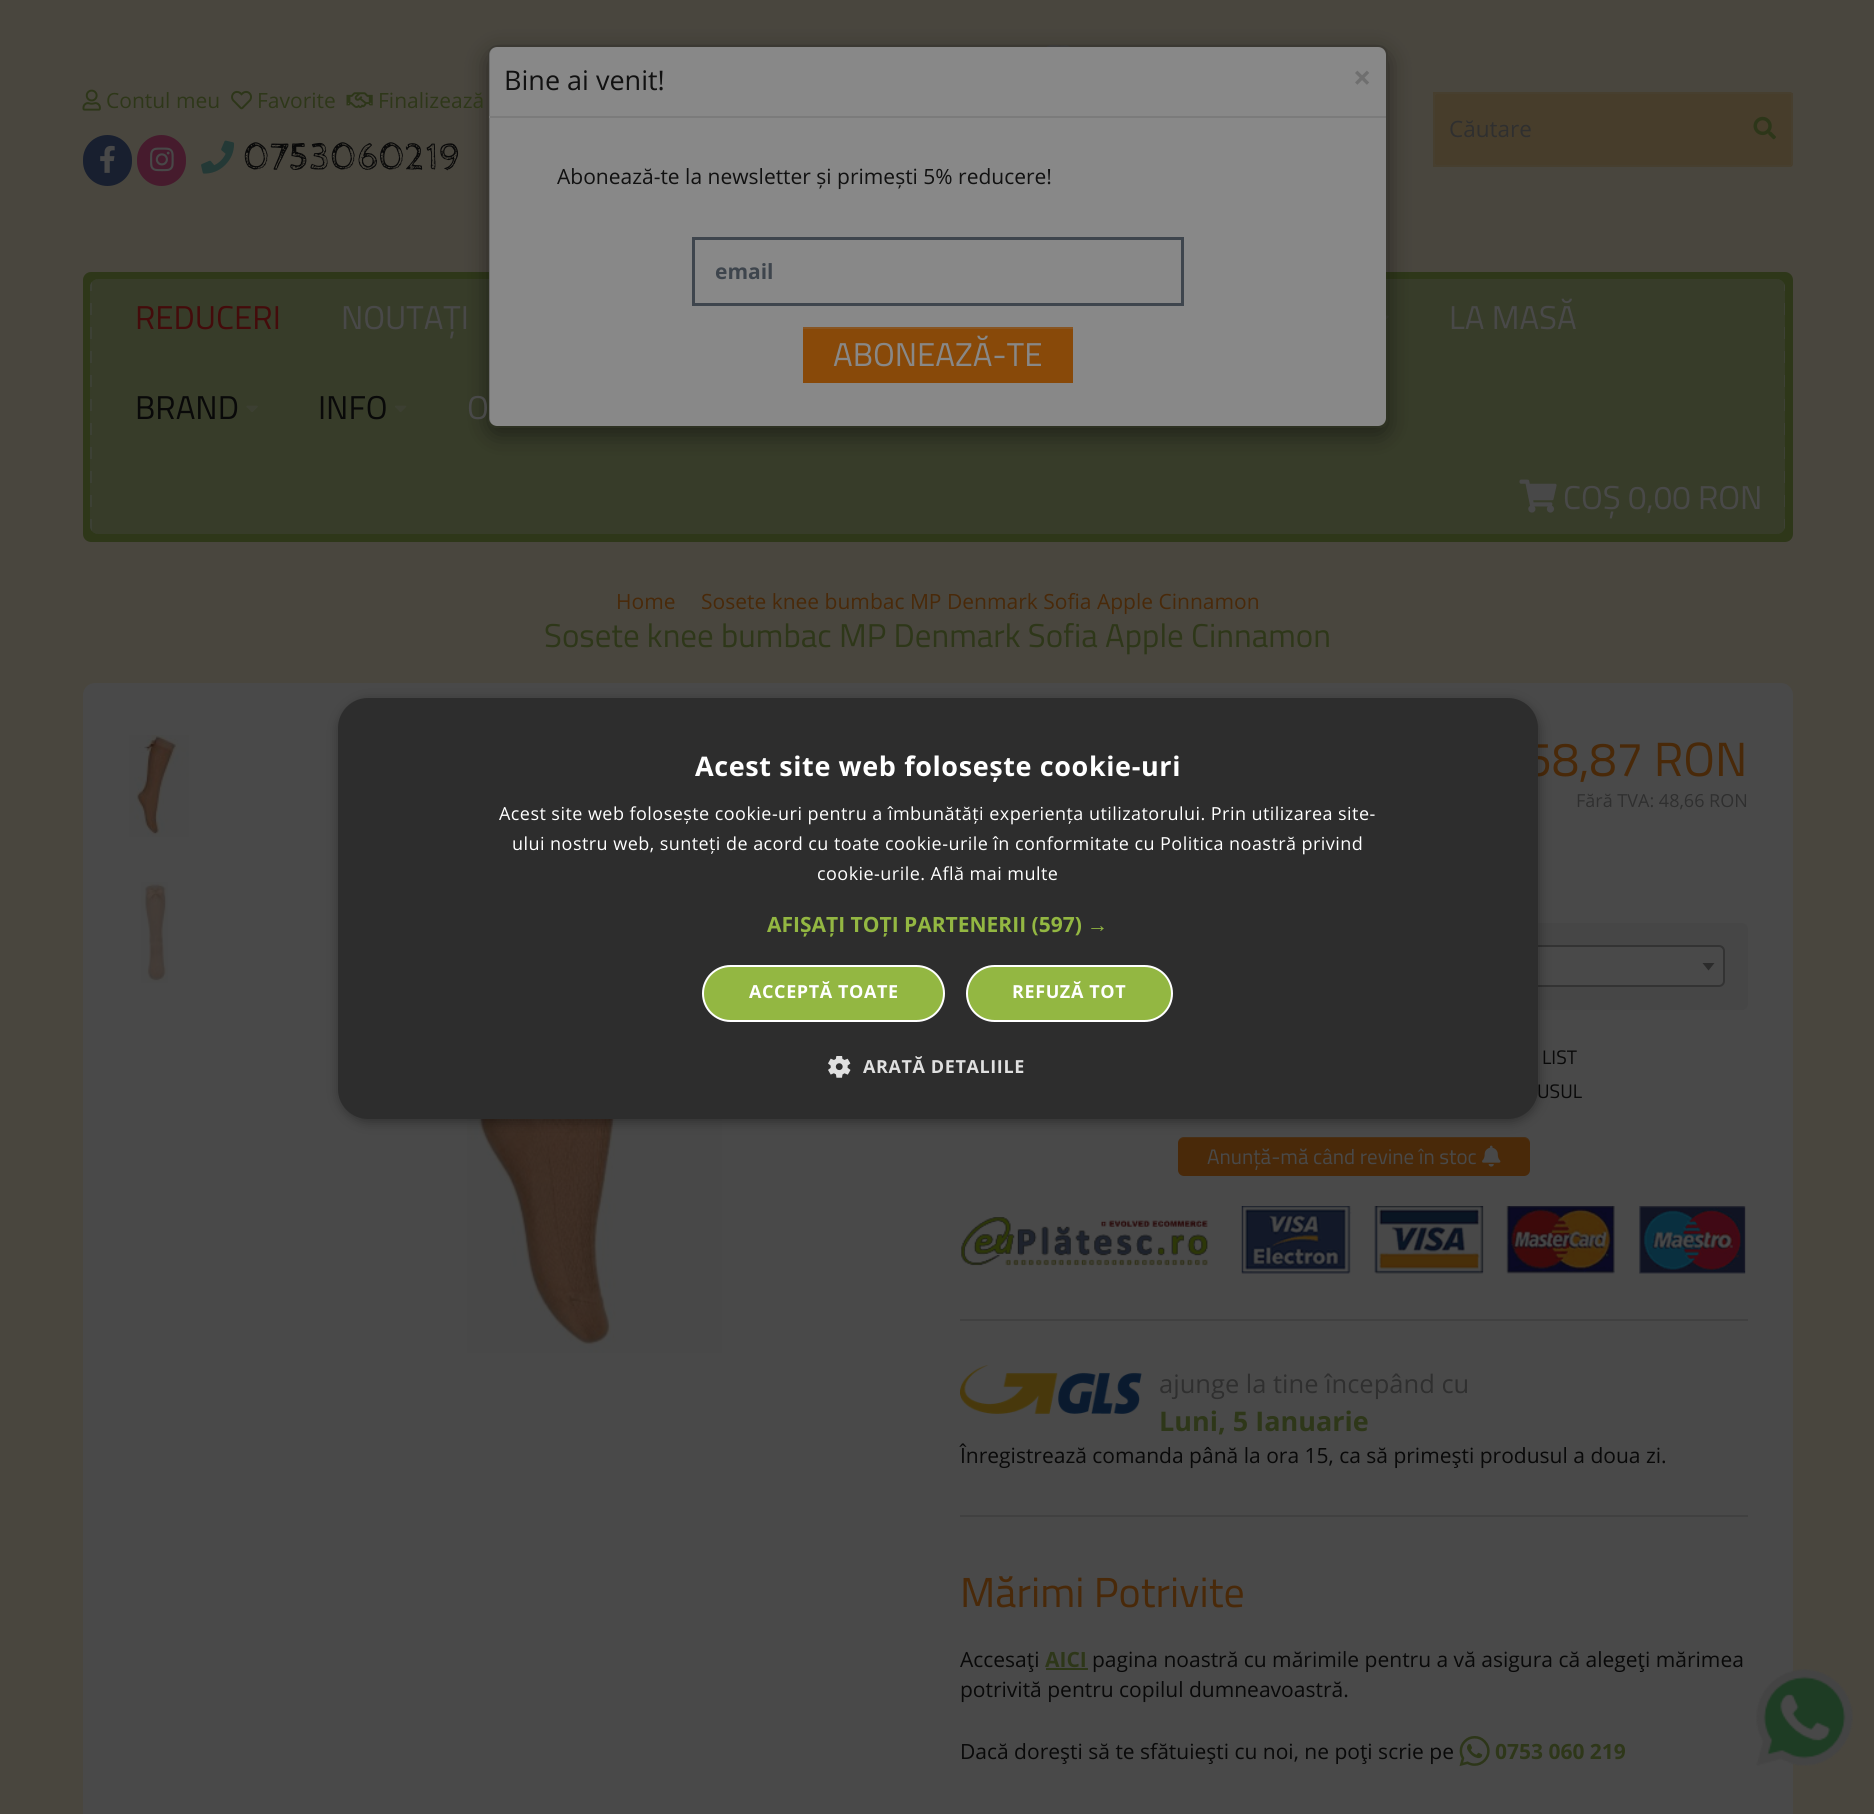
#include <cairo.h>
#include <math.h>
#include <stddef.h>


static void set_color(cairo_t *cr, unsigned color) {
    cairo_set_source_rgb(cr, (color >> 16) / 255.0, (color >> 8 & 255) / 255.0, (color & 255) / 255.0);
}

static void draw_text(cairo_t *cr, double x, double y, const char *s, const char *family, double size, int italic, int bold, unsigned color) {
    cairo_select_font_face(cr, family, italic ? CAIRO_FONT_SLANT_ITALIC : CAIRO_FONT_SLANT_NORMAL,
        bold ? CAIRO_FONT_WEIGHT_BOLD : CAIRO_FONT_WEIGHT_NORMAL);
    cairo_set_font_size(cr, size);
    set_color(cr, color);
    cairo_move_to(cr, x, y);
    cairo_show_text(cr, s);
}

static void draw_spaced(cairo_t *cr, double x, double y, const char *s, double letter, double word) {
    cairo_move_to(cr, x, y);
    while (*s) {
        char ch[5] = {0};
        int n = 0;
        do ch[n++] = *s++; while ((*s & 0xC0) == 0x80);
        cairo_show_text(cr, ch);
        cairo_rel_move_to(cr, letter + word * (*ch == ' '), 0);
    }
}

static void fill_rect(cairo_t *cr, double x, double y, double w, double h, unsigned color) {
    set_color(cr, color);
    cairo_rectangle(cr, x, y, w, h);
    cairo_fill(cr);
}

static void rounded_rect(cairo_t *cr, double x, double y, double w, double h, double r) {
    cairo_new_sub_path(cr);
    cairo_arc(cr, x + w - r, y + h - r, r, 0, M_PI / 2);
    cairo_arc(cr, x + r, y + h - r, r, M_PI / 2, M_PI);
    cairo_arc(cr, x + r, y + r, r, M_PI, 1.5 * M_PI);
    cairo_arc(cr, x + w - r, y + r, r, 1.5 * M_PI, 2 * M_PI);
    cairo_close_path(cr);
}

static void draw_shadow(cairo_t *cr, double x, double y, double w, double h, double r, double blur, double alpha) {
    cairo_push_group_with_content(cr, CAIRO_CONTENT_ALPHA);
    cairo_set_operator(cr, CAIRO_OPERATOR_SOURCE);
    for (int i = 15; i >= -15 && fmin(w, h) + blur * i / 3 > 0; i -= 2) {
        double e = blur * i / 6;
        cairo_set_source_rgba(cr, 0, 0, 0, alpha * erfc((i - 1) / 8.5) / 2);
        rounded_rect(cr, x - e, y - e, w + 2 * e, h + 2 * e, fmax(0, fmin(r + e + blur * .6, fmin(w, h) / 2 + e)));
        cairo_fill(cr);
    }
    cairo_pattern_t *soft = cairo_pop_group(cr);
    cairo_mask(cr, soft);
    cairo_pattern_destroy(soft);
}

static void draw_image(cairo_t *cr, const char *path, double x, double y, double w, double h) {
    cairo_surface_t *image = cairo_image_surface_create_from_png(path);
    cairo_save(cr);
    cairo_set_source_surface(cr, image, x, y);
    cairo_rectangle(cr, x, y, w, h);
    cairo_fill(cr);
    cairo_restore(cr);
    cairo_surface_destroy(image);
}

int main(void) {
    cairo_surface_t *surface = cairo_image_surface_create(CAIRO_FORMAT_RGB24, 1874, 1814);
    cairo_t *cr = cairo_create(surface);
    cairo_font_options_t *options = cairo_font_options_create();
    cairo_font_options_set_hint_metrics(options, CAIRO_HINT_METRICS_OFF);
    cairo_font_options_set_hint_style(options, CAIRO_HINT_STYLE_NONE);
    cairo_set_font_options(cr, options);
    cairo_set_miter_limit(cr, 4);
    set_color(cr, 0x49463E);
    cairo_paint(cr);
    draw_image(cr, "assets/img1.png", 1046, 45, 25, 2);
    set_color(cr, 0x2E3719);
    rounded_rect(cr, 83, 272, 1710, 270, 8);
    cairo_fill(cr);
    cairo_save(cr);
    rounded_rect(cr, 90, 279, 1695, 255, 8);
    cairo_clip(cr);
    fill_rect(cr, 90, 279, 2, 12, 0x383E2C);
    cairo_restore(cr);
    fill_rect(cr, 90, 303, 2, 12, 0x383E2C);
    fill_rect(cr, 90, 327, 2, 12, 0x383E2C);
    fill_rect(cr, 90, 351, 2, 12, 0x383E2C);
    fill_rect(cr, 90, 375, 2, 12, 0x383E2C);
    fill_rect(cr, 90, 399, 2, 12, 0x383E2C);
    fill_rect(cr, 90, 423, 2, 12, 0x383E2C);
    fill_rect(cr, 90, 447, 2, 12, 0x383E2C);
    fill_rect(cr, 90, 471, 2, 12, 0x383E2C);
    fill_rect(cr, 90, 495, 2, 12, 0x383E2C);
    cairo_save(cr);
    rounded_rect(cr, 90, 279, 1695, 255, 8);
    cairo_clip(cr);
    fill_rect(cr, 90, 519, 2, 12, 0x383E2C);
    cairo_restore(cr);
    cairo_set_source_rgba(cr, 0.286, 0.286, 0.286, 0.2);
    rounded_rect(cr, 90, 279, 1695, 255, 8);
    cairo_fill(cr);
    cairo_save(cr);
    rounded_rect(cr, 90, 279, 1695, 255, 8);
    cairo_clip(cr);
    cairo_set_source_rgba(cr, 0.286, 0.286, 0.286, 0.4);
    cairo_rectangle(cr, 1784, 279, 1, 12);
    cairo_fill(cr);
    cairo_restore(cr);
    fill_rect(cr, 1784, 303, 1, 12, 0x3C4032);
    fill_rect(cr, 1784, 327, 1, 12, 0x3C4032);
    fill_rect(cr, 1784, 351, 1, 12, 0x3C4032);
    fill_rect(cr, 1784, 375, 1, 12, 0x3C4032);
    fill_rect(cr, 1784, 399, 1, 12, 0x3C4032);
    fill_rect(cr, 1784, 423, 1, 12, 0x3C4032);
    fill_rect(cr, 1784, 447, 1, 12, 0x3C4032);
    fill_rect(cr, 1784, 471, 1, 12, 0x3C4032);
    fill_rect(cr, 1784, 495, 1, 12, 0x3C4032);
    cairo_save(cr);
    rounded_rect(cr, 90, 279, 1695, 255, 8);
    cairo_clip(cr);
    cairo_set_source_rgba(cr, 0.286, 0.286, 0.286, 0.4);
    cairo_rectangle(cr, 1784, 519, 1, 12);
    cairo_fill(cr);
    cairo_restore(cr);
    cairo_set_source_rgba(cr, 0.286, 0.286, 0.286, 0.2);
    rounded_rect(cr, 90, 279, 1695, 255, 8);
    cairo_fill(cr);
    draw_image(cr, "assets/img9.png", 1386, 315, 3, 5);
    cairo_save(cr);
    cairo_set_fill_rule(cr, CAIRO_FILL_RULE_EVEN_ODD);
    cairo_new_path(cr);
    cairo_move_to(cr, 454, 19);
    cairo_line_to(cr, 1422, 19);
    cairo_line_to(cr, 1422, 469);
    cairo_line_to(cr, 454, 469);
    cairo_close_path(cr);
    cairo_move_to(cr, 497, 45);
    cairo_line_to(cr, 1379, 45);
    cairo_curve_to(cr, 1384, 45, 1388, 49, 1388, 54);
    cairo_line_to(cr, 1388, 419);
    cairo_curve_to(cr, 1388, 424, 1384, 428, 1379, 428);
    cairo_line_to(cr, 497, 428);
    cairo_curve_to(cr, 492, 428, 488, 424, 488, 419);
    cairo_line_to(cr, 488, 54);
    cairo_curve_to(cr, 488, 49, 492, 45, 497, 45);
    cairo_close_path(cr);
    cairo_clip(cr);
    set_color(cr, 0x090909);
    draw_shadow(cr, 488, 53, 900, 382, 9, 11, 0.5);
    cairo_restore(cr);
    set_color(cr, 0x888888);
    rounded_rect(cr, 489, 47, 897, 379, 8);
    cairo_fill(cr);
    rounded_rect(cr, 489, 46, 898, 381, 8);
    cairo_set_source_rgba(cr, 0.035, 0.035, 0.035, 0.2);
    cairo_stroke(cr);
    fill_rect(cr, 489, 116, 897, 2, 0x7B7B7B);
    draw_text(cr, 504, 90, "Bine ai venit!", "Open Sans", 27, 0, 0, 0x111111);
    draw_text(cr, 1353, 89, "×", "Open Sans", 32, 0, 1, 0x6F6F6F);
    draw_text(cr, 557, 184, "Abonează-te la newsletter și primești 5% reducere!", "Open Sans", 21, 0, 0, 0x111111);
    cairo_rectangle(cr, 693.5, 238.5, 489, 66);
    set_color(cr, 0x3E454D);
    cairo_set_line_width(cr, 3);
    cairo_stroke(cr);
    draw_text(cr, 715, 279, "email", "Open Sans", 21, 0, 1, 0x3E454D);
    fill_rect(cr, 803, 329, 270, 54, 0x884909);
    fill_rect(cr, 803, 327, 270, 2, 0x885522);
    draw_text(cr, 833, 366, "ABONEAZĂ-TE", "Titillium Web", 33, 0, 0, 0x888888);
    draw_image(cr, "assets/img2.png", 82, 89, 19, 22);
    draw_text(cr, 106, 108, "Contul meu", "Open Sans", 21, 0, 0, 0x2E3719);
    draw_image(cr, "assets/img3.png", 231, 90, 21, 20);
    draw_text(cr, 257, 108, "Favorite", "Open Sans", 21, 0, 0, 0x2E3719);
    draw_image(cr, "assets/img4.png", 346, 92, 27, 16);
    draw_text(cr, 378, 108, "Finalizează", "Open Sans", 21, 0, 0, 0x2E3719);
    set_color(cr, 0x181F2F);
    rounded_rect(cr, 83, 135, 49, 51, 24.5);
    cairo_fill(cr);
    draw_image(cr, "assets/img5.png", 100, 145, 15, 28);
    set_color(cr, 0x461B2D);
    rounded_rect(cr, 137, 135, 49, 51, 24.5);
    cairo_fill(cr);
    draw_image(cr, "assets/img6.png", 150, 147, 24, 25);
    draw_image(cr, "assets/img7.png", 201, 140, 34, 34);
    draw_text(cr, 243, 169, "0753060219", "Cabin Sketch", 39, 0, 0, 0x090909);
    set_color(cr, 0x473D2B);
    cairo_new_path(cr);
    cairo_move_to(cr, 1739, 92);
    cairo_line_to(cr, 1790, 92);
    cairo_curve_to(cr, 1791.5, 92, 1793, 93.5, 1793, 95);
    cairo_line_to(cr, 1793, 164);
    cairo_curve_to(cr, 1793, 165.5, 1791.5, 167, 1790, 167);
    cairo_line_to(cr, 1739, 167);
    cairo_close_path(cr);
    cairo_fill(cr);
    fill_rect(cr, 1739, 92, 52, 2, 0x473F2F);
    fill_rect(cr, 1739, 165, 52, 2, 0x473F2F);
    set_color(cr, 0x473D2B);
    cairo_new_path(cr);
    cairo_move_to(cr, 1441, 92);
    cairo_line_to(cr, 1740, 92);
    cairo_line_to(cr, 1740, 167);
    cairo_line_to(cr, 1441, 167);
    cairo_curve_to(cr, 1436.5, 167, 1433, 163.5, 1433, 159);
    cairo_line_to(cr, 1433, 100);
    cairo_curve_to(cr, 1433, 95.5, 1436.5, 92, 1441, 92);
    cairo_close_path(cr);
    cairo_fill(cr);
    fill_rect(cr, 1433, 92, 307, 2, 0x473F2F);
    fill_rect(cr, 1433, 165, 307, 2, 0x473F2F);
    fill_rect(cr, 1433, 92, 2, 75, 0x473F2F);
    draw_text(cr, 1449, 137, "Căutare", "Open Sans", 22.5, 0, 0, 0x2F2F2F);
    fill_rect(cr, 1791, 93, 2, 72, 0x473F2F);
    draw_image(cr, "assets/img8.png", 1753, 116, 23, 24);
    draw_text(cr, 135, 329, "REDUCERI", "Titillium Web", 33, 0, 0, 0x440B0B);
    draw_text(cr, 341, 329, "NOUTAȚI", "Titillium Web", 33, 0, 0, 0x494949);
    draw_text(cr, 1449, 329, "LA MASĂ", "Titillium Web", 33, 0, 0, 0x494949);
    draw_text(cr, 135, 419, "BRAND", "Titillium Web", 33, 0, 0, 0x090909);
    draw_image(cr, "assets/img10.png", 246, 405, 12, 7);
    draw_text(cr, 318, 419, "INFO", "Titillium Web", 33, 0, 0, 0x090909);
    draw_image(cr, "assets/img11.png", 395, 405, 12, 7);
    draw_text(cr, 467, 419, "O", "Titillium Web", 33, 0, 0, 0x494949);
    draw_image(cr, "assets/img12.png", 1519, 479, 38, 34);
    draw_text(cr, 1563, 509, "COȘ 0,00 RON", "Titillium Web", 33, 0, 0, 0x494949);
    draw_text(cr, 616, 609, "Home", "Open Sans", 21, 0, 0, 0x492909);
    draw_text(cr, 701, 609, "Sosete knee bumbac MP Denmark Sofia Apple Cinnamon", "Open Sans", 21, 0, 0, 0x492909);
    draw_text(cr, 544, 647, "Sosete knee bumbac MP Denmark Sofia Apple Cinnamon", "Titillium Web", 33, 0, 0, 0x2E3719);
    set_color(cr, 0x494949);
    rounded_rect(cr, 83, 683, 1710, 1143, 12);
    cairo_fill(cr);
    draw_image(cr, "assets/img13.png", 129, 735, 60, 102);
    draw_image(cr, "assets/img14.png", 141, 882, 27, 101);
    draw_image(cr, "assets/img15.png", 467, 1119, 255, 234);
    draw_text(cr, 1525, 776, "58,87 RON", "Titillium Web", 48, 0, 0, 0x492909);
    draw_text(cr, 1576, 807, "Fără TVA: 48,66 RON", "Open Sans", 18, 0, 0, 0x2F2F2F);
    set_color(cr, 0x464646);
    rounded_rect(cr, 960, 923, 788, 87, 6);
    cairo_fill(cr);
    set_color(cr, 0x494949);
    rounded_rect(cr, 1180, 946, 544, 40, 5);
    cairo_fill_preserve(cr);
    set_color(cr, 0x333333);
    cairo_set_line_width(cr, 2);
    cairo_stroke(cr);
    set_color(cr, 0x2B2B2B);
    cairo_new_path(cr);
    cairo_move_to(cr, 1702.5, 963);
    cairo_line_to(cr, 1714.5, 963);
    cairo_line_to(cr, 1708.5, 970.5);
    cairo_close_path(cr);
    cairo_fill(cr);
    draw_text(cr, 1542, 1064, "LIST", "Titillium Web", 19.5, 0, 0, 0x090909);
    draw_text(cr, 1537, 1098, "USUL", "Titillium Web", 19.5, 0, 0, 0x090909);
    set_color(cr, 0x492909);
    rounded_rect(cr, 1178, 1137, 352, 39, 6);
    cairo_fill(cr);
    cairo_set_source_rgba(cr, 0.286, 0.286, 0.286, 0.2);
    cairo_new_path(cr);
    cairo_move_to(cr, 1184, 1138);
    cairo_line_to(cr, 1524, 1138);
    cairo_curve_to(cr, 1527, 1138, 1530, 1141, 1530, 1144);
    cairo_curve_to(cr, 1530, 1140, 1528, 1137, 1524, 1137);
    cairo_line_to(cr, 1184, 1137);
    cairo_curve_to(cr, 1180, 1137, 1178, 1140, 1178, 1144);
    cairo_curve_to(cr, 1178, 1141, 1180, 1138, 1184, 1138);
    cairo_close_path(cr);
    cairo_fill(cr);
    draw_text(cr, 1207, 1164, "Anunță-mă când revine în stoc", "Titillium Web", 21, 0, 0, 0x494949);
    draw_image(cr, "assets/img16.png", 1482, 1145, 19, 22);
    draw_image(cr, "assets/img17.png", 961, 1206, 785, 68);
    fill_rect(cr, 960, 1319, 788, 2, 0x404040);
    draw_image(cr, "assets/img18.png", 960, 1365, 182, 49);
    draw_text(cr, 1159, 1393, "ajunge la tine începând cu", "Open Sans", 25.5, 0, 0, 0x2F2F2F);
    draw_text(cr, 1159, 1431, "Luni, 5 Ianuarie", "Open Sans", 27, 0, 1, 0x2E3719);
    draw_text(cr, 960, 1463, "Înregistrează comanda până la ora 15, ca să primeşti produsul a doua zi.", "Open Sans", 21, 0, 0, 0x090909);
    fill_rect(cr, 960, 1515, 788, 2, 0x404040);
    draw_text(cr, 960, 1607, "Mărimi Potrivite", "Titillium Web", 42, 0, 0, 0x492909);
    draw_text(cr, 960, 1667, "Accesaţi", "Open Sans", 21, 0, 0, 0x090909);
    draw_text(cr, 1045, 1667, "AICI", "Open Sans", 21, 0, 1, 0x2E3719);
    fill_rect(cr, 1046, 1668, 42, 2, 0x2E3719);
    draw_text(cr, 1092, 1667, "pagina noastră cu mărimile pentru a vă asigura că alegeţi mărimea", "Open Sans", 21, 0, 0, 0x090909);
    draw_text(cr, 960, 1697, "potrivită pentru copilul dumneavoastră.", "Open Sans", 21, 0, 0, 0x090909);
    draw_text(cr, 960, 1759, "Dacă doreşti să te sfătuieşti cu noi, ne poţi scrie pe", "Open Sans", 21, 0, 0, 0x090909);
    draw_image(cr, "assets/img19.png", 1459, 1736, 31, 31);
    draw_text(cr, 1495, 1759, "0753 060 219", "Open Sans", 21, 0, 1, 0x2E3719);
    set_color(cr, 0x000000);
    draw_shadow(cr, 339, 701, 1200, 421, 30, 6, 0.35);
    set_color(cr, 0x2D2D2D);
    rounded_rect(cr, 338, 698, 1200, 421, 30);
    cairo_fill(cr);
    cairo_set_font_size(cr, 27);
    set_color(cr, 0xFFFFFF);
    draw_spaced(cr, 695, 776, "Acest site web folosește cookie-uri", 0.6, 0);
    cairo_select_font_face(cr, "Open Sans", CAIRO_FONT_SLANT_NORMAL, CAIRO_FONT_WEIGHT_NORMAL);
    cairo_set_font_size(cr, 18);
    draw_spaced(cr, 499, 820, "Acest site web folosește cookie-uri pentru a îmbunătăți experiența utilizatorului. Prin utilizarea site-", 0.45, 0);
    draw_spaced(cr, 512, 850, "ului nostru web, sunteți de acord cu toate cookie-urile în conformitate cu Politica noastră privind", 0.45, 0);
    draw_spaced(cr, 817, 880, "cookie-urile. Află mai multe", 0.45, 0);
    draw_text(cr, 767, 932, "AFIȘAȚI TOȚI PARTENERII (597)", "Open Sans", 21, 0, 1, 0x93B742);
    draw_text(cr, 1087, 932, "→", "Liberation Sans", 21, 0, 1, 0x93B742);
    rounded_rect(cr, 703, 966, 241, 55, 27.5);
    cairo_fill_preserve(cr);
    set_color(cr, 0xFFFFFF);
    cairo_stroke(cr);
    cairo_select_font_face(cr, "Open Sans", CAIRO_FONT_SLANT_NORMAL, CAIRO_FONT_WEIGHT_BOLD);
    cairo_set_font_size(cr, 18);
    draw_spaced(cr, 749, 998, "ACCEPTĂ TOATE", 0.6, 0);
    set_color(cr, 0x93B742);
    rounded_rect(cr, 967, 966, 205, 55, 27.5);
    cairo_fill_preserve(cr);
    set_color(cr, 0xFFFFFF);
    cairo_stroke(cr);
    draw_spaced(cr, 1012, 998, "REFUZĂ TOT", 0.6, 0);
    draw_image(cr, "assets/img20.png", 828, 1056, 23, 22);
    set_color(cr, 0xE0E0E0);
    draw_spaced(cr, 863, 1073, "ARATĂ DETALIILE", 0.6, 0);
    draw_image(cr, "assets/img21.png", 1756, 1669, 97, 97);
    cairo_surface_write_to_png(surface, "output.png");
    cairo_font_options_destroy(options);
    cairo_destroy(cr);
    cairo_surface_destroy(surface);
    return 0;
}
